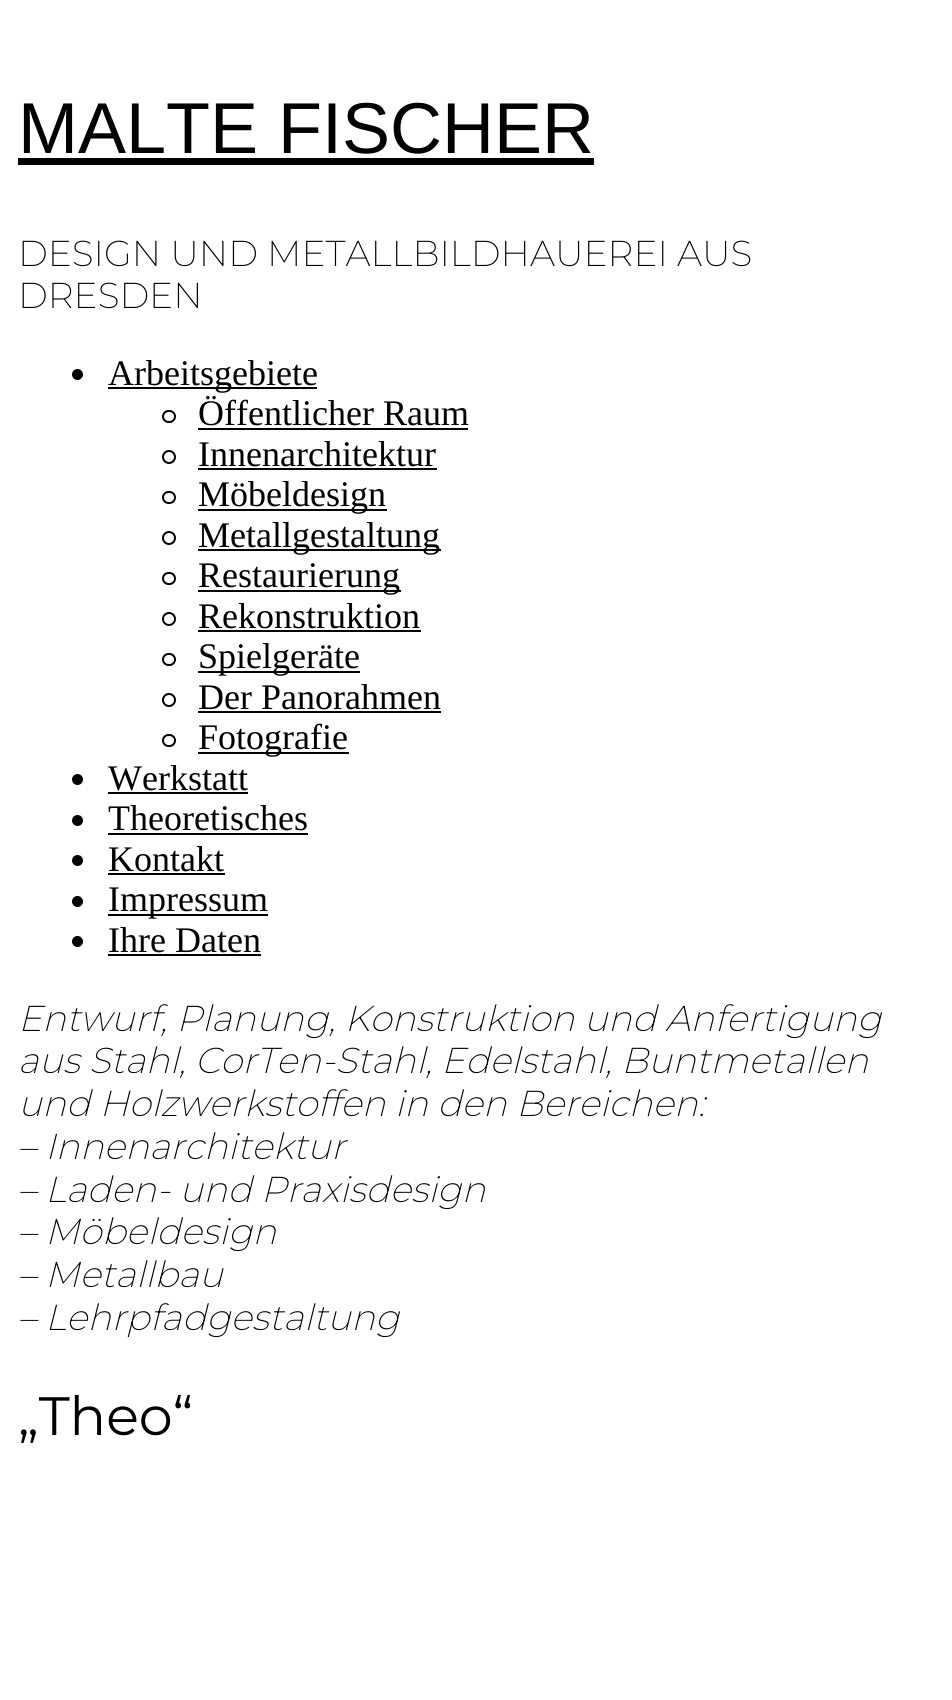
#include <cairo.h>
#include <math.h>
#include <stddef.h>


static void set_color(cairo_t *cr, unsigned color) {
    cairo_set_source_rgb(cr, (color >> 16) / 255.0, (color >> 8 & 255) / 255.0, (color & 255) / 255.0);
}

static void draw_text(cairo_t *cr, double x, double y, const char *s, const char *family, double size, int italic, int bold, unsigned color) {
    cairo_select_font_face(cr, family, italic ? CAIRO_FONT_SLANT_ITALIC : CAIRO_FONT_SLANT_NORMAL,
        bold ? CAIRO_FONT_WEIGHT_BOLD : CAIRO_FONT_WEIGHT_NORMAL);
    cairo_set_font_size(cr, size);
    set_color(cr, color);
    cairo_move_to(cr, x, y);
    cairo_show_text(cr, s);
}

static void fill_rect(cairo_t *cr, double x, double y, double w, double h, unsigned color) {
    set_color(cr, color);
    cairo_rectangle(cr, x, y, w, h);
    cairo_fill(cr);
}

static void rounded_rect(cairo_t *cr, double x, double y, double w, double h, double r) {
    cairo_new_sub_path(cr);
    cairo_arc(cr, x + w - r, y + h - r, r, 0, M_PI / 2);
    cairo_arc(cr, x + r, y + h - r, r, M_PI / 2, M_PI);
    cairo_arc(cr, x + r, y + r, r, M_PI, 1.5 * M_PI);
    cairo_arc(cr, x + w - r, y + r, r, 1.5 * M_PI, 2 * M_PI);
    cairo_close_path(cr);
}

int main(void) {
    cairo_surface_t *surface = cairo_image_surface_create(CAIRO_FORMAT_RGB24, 952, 1700);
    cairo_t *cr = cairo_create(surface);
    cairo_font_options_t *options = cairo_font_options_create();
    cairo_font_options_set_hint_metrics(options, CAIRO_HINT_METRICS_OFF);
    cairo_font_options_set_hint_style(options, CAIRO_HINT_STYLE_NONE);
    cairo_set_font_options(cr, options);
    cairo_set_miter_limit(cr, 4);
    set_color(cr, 0xFFFFFF);
    cairo_paint(cr);
    draw_text(cr, 18, 153, "MALTE FISCHER", "Liberation Sans", 72, 0, 0, 0x000000);
    fill_rect(cr, 18, 158, 576, 7, 0x000000);
    draw_text(cr, 18, 266, "DESIGN UND METALLBILDHAUEREI AUS", "Montserrat ExtraLight", 36, 0, 0, 0x000000);
    draw_text(cr, 18, 308, "DRESDEN", "Montserrat ExtraLight", 36, 0, 0, 0x000000);
    cairo_new_path(cr);
    cairo_arc(cr, 77.5, 374.5, 5.5, 0, 2 * M_PI);
    cairo_fill(cr);
    fill_rect(cr, 108, 387, 209, 2, 0x000000);
    draw_text(cr, 108, 385, "Arbeitsgebiete", "Liberation Serif", 36, 0, 0, 0x000000);
    rounded_rect(cr, 163, 411, 12, 11, 5.5);
    cairo_stroke(cr);
    draw_text(cr, 198, 425, "Öffentlicher Raum", "Liberation Serif", 36, 0, 0, 0x000000);
    fill_rect(cr, 198, 428, 270, 2, 0x000000);
    cairo_new_path(cr);
    cairo_arc(cr, 169, 457, 6, 0, 2 * M_PI);
    cairo_stroke(cr);
    draw_text(cr, 198, 466, "Innenarchitektur", "Liberation Serif", 36, 0, 0, 0x000000);
    fill_rect(cr, 198, 468, 239, 2, 0x000000);
    rounded_rect(cr, 163, 492, 12, 11, 5.5);
    cairo_stroke(cr);
    fill_rect(cr, 198, 509, 189, 2, 0x000000);
    draw_text(cr, 198, 506, "Möbeldesign", "Liberation Serif", 36, 0, 0, 0x000000);
    cairo_new_path(cr);
    cairo_arc(cr, 169, 538, 6, 0, 2 * M_PI);
    cairo_stroke(cr);
    fill_rect(cr, 198, 549, 243, 2, 0x000000);
    draw_text(cr, 198, 547, "Metallgestaltung", "Liberation Serif", 36, 0, 0, 0x000000);
    rounded_rect(cr, 163, 573, 12, 11, 5.5);
    cairo_stroke(cr);
    fill_rect(cr, 198, 590, 203, 2, 0x000000);
    draw_text(cr, 198, 587, "Restaurierung", "Liberation Serif", 36, 0, 0, 0x000000);
    cairo_new_path(cr);
    cairo_arc(cr, 169, 619, 6, 0, 2 * M_PI);
    cairo_stroke(cr);
    draw_text(cr, 198, 628, "Rekonstruktion", "Liberation Serif", 36, 0, 0, 0x000000);
    fill_rect(cr, 198, 630, 223, 2, 0x000000);
    rounded_rect(cr, 163, 654, 12, 11, 5.5);
    cairo_stroke(cr);
    fill_rect(cr, 198, 671, 162, 2, 0x000000);
    draw_text(cr, 198, 668, "Spielgeräte", "Liberation Serif", 36, 0, 0, 0x000000);
    cairo_new_path(cr);
    cairo_arc(cr, 169, 700, 6, 0, 2 * M_PI);
    cairo_stroke(cr);
    draw_text(cr, 198, 709, "Der Panorahmen", "Liberation Serif", 36, 0, 0, 0x000000);
    fill_rect(cr, 198, 711, 243, 2, 0x000000);
    rounded_rect(cr, 163, 735, 12, 11, 5.5);
    cairo_stroke(cr);
    fill_rect(cr, 198, 752, 151, 2, 0x000000);
    draw_text(cr, 198, 749, "Fotografie", "Liberation Serif", 36, 0, 0, 0x000000);
    cairo_new_path(cr);
    cairo_arc(cr, 77.5, 779.5, 5.5, 0, 2 * M_PI);
    cairo_fill(cr);
    draw_text(cr, 108, 790, "Werkstatt", "Liberation Serif", 36, 0, 0, 0x000000);
    fill_rect(cr, 108, 792, 140, 2, 0x000000);
    cairo_new_path(cr);
    cairo_arc(cr, 77.5, 820.5, 5.5, 0, 2 * M_PI);
    cairo_fill(cr);
    draw_text(cr, 108, 830, "Theoretisches", "Liberation Serif", 36, 0, 0, 0x000000);
    fill_rect(cr, 108, 833, 200, 2, 0x000000);
    cairo_new_path(cr);
    cairo_arc(cr, 77.5, 860.5, 5.5, 0, 2 * M_PI);
    cairo_fill(cr);
    draw_text(cr, 108, 871, "Kontakt", "Liberation Serif", 36, 0, 0, 0x000000);
    fill_rect(cr, 108, 873, 117, 2, 0x000000);
    cairo_new_path(cr);
    cairo_arc(cr, 77.5, 901.5, 5.5, 0, 2 * M_PI);
    cairo_fill(cr);
    fill_rect(cr, 108, 914, 160, 2, 0x000000);
    draw_text(cr, 108, 911, "Impressum", "Liberation Serif", 36, 0, 0, 0x000000);
    cairo_new_path(cr);
    cairo_arc(cr, 77.5, 941.5, 5.5, 0, 2 * M_PI);
    cairo_fill(cr);
    draw_text(cr, 108, 952, "Ihre Daten", "Liberation Serif", 36, 0, 0, 0x000000);
    fill_rect(cr, 108, 954, 153, 2, 0x000000);
    draw_text(cr, 18, 1031, "Entwurf, Planung, Konstruktion und Anfertigung", "Montserrat ExtraLight", 36, 1, 0, 0x000000);
    draw_text(cr, 18, 1073, "aus Stahl, CorTen-Stahl, Edelstahl, Buntmetallen", "Montserrat ExtraLight", 36, 1, 0, 0x000000);
    draw_text(cr, 18, 1116, "und Holzwerkstoffen in den Bereichen:", "Montserrat ExtraLight", 36, 1, 0, 0x000000);
    draw_text(cr, 18, 1159, "– Innenarchitektur", "Montserrat ExtraLight", 36, 1, 0, 0x000000);
    draw_text(cr, 18, 1202, "– Laden- und Praxisdesign", "Montserrat ExtraLight", 36, 1, 0, 0x000000);
    draw_text(cr, 18, 1244, "– Möbeldesign", "Montserrat ExtraLight", 36, 1, 0, 0x000000);
    draw_text(cr, 18, 1287, "– Metallbau", "Montserrat ExtraLight", 36, 1, 0, 0x000000);
    draw_text(cr, 18, 1330, "– Lehrpfadgestaltung", "Montserrat ExtraLight", 36, 1, 0, 0x000000);
    draw_text(cr, 18, 1435, "„Theo“", "Montserrat", 54, 0, 0, 0x000000);
    cairo_surface_write_to_png(surface, "output.png");
    cairo_font_options_destroy(options);
    cairo_destroy(cr);
    cairo_surface_destroy(surface);
    return 0;
}
